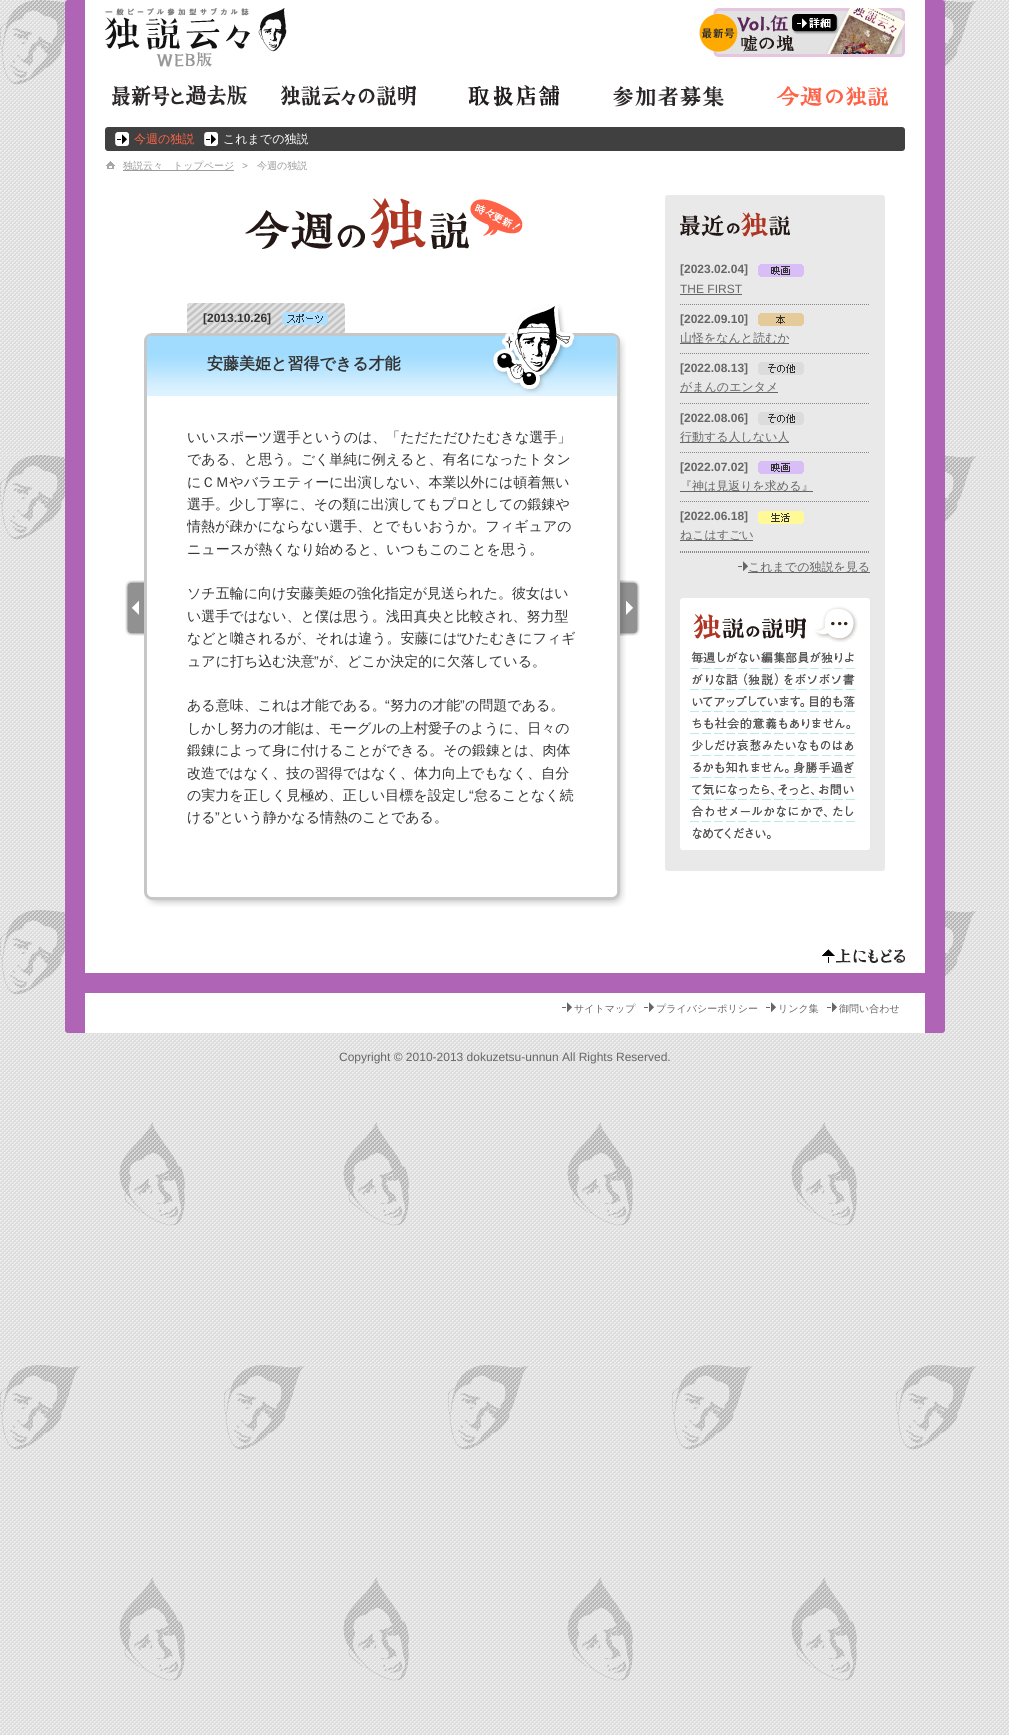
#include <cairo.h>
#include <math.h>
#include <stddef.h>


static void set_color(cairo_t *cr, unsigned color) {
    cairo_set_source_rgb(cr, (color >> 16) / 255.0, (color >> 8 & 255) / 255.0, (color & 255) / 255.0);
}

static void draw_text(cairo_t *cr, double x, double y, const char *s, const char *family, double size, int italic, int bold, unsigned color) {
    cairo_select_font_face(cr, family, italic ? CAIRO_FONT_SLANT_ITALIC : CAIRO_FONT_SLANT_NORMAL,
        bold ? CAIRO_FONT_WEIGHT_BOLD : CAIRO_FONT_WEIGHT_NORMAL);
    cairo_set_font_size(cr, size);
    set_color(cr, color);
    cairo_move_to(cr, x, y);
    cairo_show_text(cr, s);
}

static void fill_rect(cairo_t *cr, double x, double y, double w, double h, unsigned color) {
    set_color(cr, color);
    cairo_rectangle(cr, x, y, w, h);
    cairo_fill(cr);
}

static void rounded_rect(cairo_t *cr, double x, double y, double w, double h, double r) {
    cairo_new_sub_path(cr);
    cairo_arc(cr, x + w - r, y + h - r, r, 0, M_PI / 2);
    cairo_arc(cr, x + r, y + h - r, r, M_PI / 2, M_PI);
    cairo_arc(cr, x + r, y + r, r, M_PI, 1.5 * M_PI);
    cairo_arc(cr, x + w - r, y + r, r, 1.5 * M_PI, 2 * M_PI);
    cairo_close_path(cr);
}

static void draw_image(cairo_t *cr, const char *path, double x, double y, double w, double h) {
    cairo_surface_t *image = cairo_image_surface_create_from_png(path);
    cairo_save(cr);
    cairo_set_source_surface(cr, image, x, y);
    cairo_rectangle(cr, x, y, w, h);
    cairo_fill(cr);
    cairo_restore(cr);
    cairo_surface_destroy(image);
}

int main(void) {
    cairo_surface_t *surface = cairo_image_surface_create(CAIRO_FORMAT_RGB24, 1009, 1735);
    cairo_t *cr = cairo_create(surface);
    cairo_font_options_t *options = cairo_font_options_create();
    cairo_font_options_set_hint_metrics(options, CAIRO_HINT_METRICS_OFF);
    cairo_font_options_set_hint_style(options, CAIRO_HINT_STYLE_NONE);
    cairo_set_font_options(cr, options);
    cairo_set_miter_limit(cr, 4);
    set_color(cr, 0xFFFFFF);
    cairo_paint(cr);
    draw_image(cr, "assets/img1.png", 0, 0, 1009, 1735);
    set_color(cr, 0xAF64B6);
    rounded_rect(cr, 65, 0, 880, 1033, 3);
    cairo_fill(cr);
    fill_rect(cr, 85, 0, 840, 973, 0xFFFFFF);
    draw_image(cr, "assets/img2.png", 105, 8, 182, 59);
    draw_image(cr, "assets/img3.png", 699, 8, 206, 49);
    draw_image(cr, "assets/img4.png", 112, 85, 136, 22);
    draw_image(cr, "assets/img5.png", 281, 85, 135, 21);
    draw_image(cr, "assets/img6.png", 468, 85, 92, 22);
    draw_image(cr, "assets/img7.png", 613, 86, 111, 21);
    draw_image(cr, "assets/img8.png", 776, 86, 112, 20);
    set_color(cr, 0x404040);
    rounded_rect(cr, 105, 127, 800, 24, 3);
    cairo_fill(cr);
    draw_image(cr, "assets/img9.png", 115, 132, 14, 14);
    draw_text(cr, 134, 143, "今週の独説", "WenQuanYi Zen Hei Medium", 12, 0, 0, 0xFF6347);
    draw_image(cr, "assets/img9.png", 204, 132, 14, 14);
    draw_text(cr, 223, 143, "これまでの独説", "WenQuanYi Zen Hei Medium", 12, 0, 0, 0xFFFFFF);
    draw_image(cr, "assets/img10.png", 106, 161, 9, 8);
    fill_rect(cr, 123, 170, 111, 1, 0x999999);
    draw_text(cr, 123, 169, "独説云々　トップページ", "WenQuanYi Zen Hei Medium", 10, 0, 0, 0x999999);
    draw_text(cr, 242, 169, ">", "Liberation Sans", 10, 0, 0, 0x999999);
    draw_text(cr, 257, 169, "今週の独説", "WenQuanYi Zen Hei Medium", 10, 0, 0, 0x999999);
    draw_image(cr, "assets/img11.png", 245, 198, 278, 52);
    draw_image(cr, "assets/img12.png", 144, 304, 482, 92);
    draw_image(cr, "assets/img13.png", 187, 303, 158, 30);
    draw_text(cr, 203, 322, "[2013.10.26]", "Liberation Sans", 12, 0, 1, 0x333333);
    draw_image(cr, "assets/img14.png", 282, 312, 46, 13);
    draw_text(cr, 207, 369, "安藤美姫と習得できる才能", "WenQuanYi Zen Hei", 16, 0, 1, 0x333333);
    draw_image(cr, "assets/img17.png", 620, 580, 20, 56);
    draw_image(cr, "assets/img15.png", 144, 396, 482, 495);
    draw_text(cr, 187, 442, "いいスポーツ選手というのは、「ただただひたむきな選手」", "WenQuanYi Zen Hei Medium", 14, 0, 0, 0x333333);
    draw_text(cr, 187, 464, "である、と思う。ごく単純に例えると、有名になったトタン", "WenQuanYi Zen Hei Medium", 14, 0, 0, 0x333333);
    draw_text(cr, 187, 487, "にＣＭやバラエティーに出演しない、本業以外には頓着無い", "WenQuanYi Zen Hei Medium", 14, 0, 0, 0x333333);
    draw_text(cr, 187, 509, "選手。少し丁寧に、その類に出演してもプロとしての鍛錬や", "WenQuanYi Zen Hei Medium", 14, 0, 0, 0x333333);
    cairo_save(cr);
    cairo_rectangle(cr, 187, 426, 390, 425);
    cairo_clip(cr);
    draw_text(cr, 187, 531, "情熱が疎かにならない選手、とでもいおうか。フィギュアの", "WenQuanYi Zen Hei Medium", 14, 0, 0, 0x333333);
    cairo_restore(cr);
    draw_text(cr, 187, 554, "ニュースが熱くなり始めると、いつもこのことを思う。", "WenQuanYi Zen Hei Medium", 14, 0, 0, 0x333333);
    draw_text(cr, 187, 598, "ソチ五輪に向け安藤美姫の強化指定が見送られた。彼女はい", "WenQuanYi Zen Hei Medium", 14, 0, 0, 0x333333);
    draw_text(cr, 187, 621, "い選手ではない、と僕は思う。浅田真央と比較され、努力型", "WenQuanYi Zen Hei Medium", 14, 0, 0, 0x333333);
    draw_text(cr, 187, 643, "などと囃されるが、それは違う。安藤には", "WenQuanYi Zen Hei Medium", 14, 0, 0, 0x333333);
    draw_text(cr, 457, 643, "“", "Liberation Sans", 14, 0, 0, 0x333333);
    draw_text(cr, 461, 643, "ひたむきにフィギ", "WenQuanYi Zen Hei Medium", 14, 0, 0, 0x333333);
    draw_text(cr, 187, 666, "ュアに打ち込む決意", "WenQuanYi Zen Hei Medium", 14, 0, 0, 0x333333);
    draw_text(cr, 314, 666, "”", "Liberation Sans", 14, 0, 0, 0x333333);
    draw_text(cr, 319, 666, "が、どこか決定的に欠落している。", "WenQuanYi Zen Hei Medium", 14, 0, 0, 0x333333);
    draw_text(cr, 187, 710, "ある意味、これは才能である。", "WenQuanYi Zen Hei Medium", 14, 0, 0, 0x333333);
    draw_text(cr, 385, 710, "“", "Liberation Sans", 14, 0, 0, 0x333333);
    draw_text(cr, 390, 710, "努力の才能", "WenQuanYi Zen Hei Medium", 14, 0, 0, 0x333333);
    draw_text(cr, 460, 710, "”", "Liberation Sans", 14, 0, 0, 0x333333);
    draw_text(cr, 465, 710, "の問題である。", "WenQuanYi Zen Hei Medium", 14, 0, 0, 0x333333);
    draw_text(cr, 187, 733, "しかし努力の才能は、モーグルの上村愛子のように、日々の", "WenQuanYi Zen Hei Medium", 14, 0, 0, 0x333333);
    draw_text(cr, 187, 755, "鍛錬によって身に付けることができる。その鍛錬とは、肉体", "WenQuanYi Zen Hei Medium", 14, 0, 0, 0x333333);
    draw_text(cr, 187, 778, "改造ではなく、技の習得ではなく、体力向上でもなく、自分", "WenQuanYi Zen Hei Medium", 14, 0, 0, 0x333333);
    draw_text(cr, 187, 800, "の実力を正しく見極め、正しい目標を設定し", "WenQuanYi Zen Hei Medium", 14, 0, 0, 0x333333);
    draw_text(cr, 469, 800, "“", "Liberation Sans", 14, 0, 0, 0x333333);
    draw_text(cr, 474, 800, "怠ることなく続", "WenQuanYi Zen Hei Medium", 14, 0, 0, 0x333333);
    draw_text(cr, 187, 822, "ける", "WenQuanYi Zen Hei Medium", 14, 0, 0, 0x333333);
    draw_text(cr, 215, 822, "”", "Liberation Sans", 14, 0, 0, 0x333333);
    draw_text(cr, 220, 822, "という静かなる情熱のことである。", "WenQuanYi Zen Hei Medium", 14, 0, 0, 0x333333);
    draw_image(cr, "assets/img16.png", 125, 580, 19, 56);
    draw_image(cr, "assets/img18.png", 144, 891, 482, 16);
    set_color(cr, 0xE9E9E9);
    rounded_rect(cr, 665, 195, 220, 676, 3);
    cairo_fill(cr);
    draw_image(cr, "assets/img19.png", 680, 212, 110, 25);
    cairo_new_path(cr);
    cairo_move_to(cr, 680, 552.5);
    cairo_line_to(cr, 870, 552.5);
    set_color(cr, 0x868686);
    cairo_set_line_width(cr, 1);
    cairo_set_dash(cr, (double[]){1, 1}, 2, 0);
    cairo_stroke(cr);
    cairo_new_path(cr);
    cairo_move_to(cr, 680, 304.5);
    cairo_line_to(cr, 870, 304.5);
    cairo_stroke(cr);
    draw_text(cr, 680, 273, "[2023.02.04]", "Liberation Sans", 12, 0, 1, 0x666666);
    draw_image(cr, "assets/img20.png", 758, 264, 46, 13);
    draw_text(cr, 680, 293, "THE FIRST", "Liberation Sans", 12, 0, 0, 0x666666);
    fill_rect(cr, 680, 294, 62, 1, 0x666666);
    cairo_new_path(cr);
    cairo_move_to(cr, 680, 353.5);
    cairo_line_to(cr, 870, 353.5);
    set_color(cr, 0x868686);
    cairo_stroke(cr);
    draw_text(cr, 680, 323, "[2022.09.10]", "Liberation Sans", 12, 0, 1, 0x666666);
    draw_image(cr, "assets/img21.png", 758, 313, 46, 13);
    fill_rect(cr, 680, 343, 109, 1, 0x666666);
    draw_text(cr, 680, 342, "山怪をなんと読むか", "WenQuanYi Zen Hei Medium", 12, 0, 0, 0x666666);
    cairo_new_path(cr);
    cairo_move_to(cr, 680, 403.5);
    cairo_line_to(cr, 870, 403.5);
    set_color(cr, 0x868686);
    cairo_stroke(cr);
    draw_text(cr, 680, 372, "[2022.08.13]", "Liberation Sans", 12, 0, 1, 0x666666);
    draw_image(cr, "assets/img22.png", 758, 362, 46, 13);
    fill_rect(cr, 680, 392, 98, 1, 0x666666);
    draw_text(cr, 680, 391, "がまんのエンタメ", "WenQuanYi Zen Hei Medium", 12, 0, 0, 0x666666);
    cairo_new_path(cr);
    cairo_move_to(cr, 680, 452.5);
    cairo_line_to(cr, 870, 452.5);
    set_color(cr, 0x868686);
    cairo_stroke(cr);
    draw_text(cr, 680, 422, "[2022.08.06]", "Liberation Sans", 12, 0, 1, 0x666666);
    draw_image(cr, "assets/img22.png", 758, 412, 46, 13);
    fill_rect(cr, 680, 442, 109, 1, 0x666666);
    draw_text(cr, 680, 441, "行動する人しない人", "WenQuanYi Zen Hei Medium", 12, 0, 0, 0x666666);
    cairo_new_path(cr);
    cairo_move_to(cr, 680, 501.5);
    cairo_line_to(cr, 870, 501.5);
    set_color(cr, 0x868686);
    cairo_stroke(cr);
    draw_text(cr, 680, 471, "[2022.07.02]", "Liberation Sans", 12, 0, 1, 0x666666);
    draw_image(cr, "assets/img20.png", 758, 461, 46, 13);
    fill_rect(cr, 680, 491, 133, 1, 0x666666);
    draw_text(cr, 680, 490, "『神は見返りを求める』", "WenQuanYi Zen Hei Medium", 12, 0, 0, 0x666666);
    cairo_new_path(cr);
    cairo_move_to(cr, 680, 551.5);
    cairo_line_to(cr, 870, 551.5);
    set_color(cr, 0x868686);
    cairo_stroke(cr);
    draw_text(cr, 680, 520, "[2022.06.18]", "Liberation Sans", 12, 0, 1, 0x666666);
    draw_image(cr, "assets/img23.png", 758, 511, 46, 13);
    fill_rect(cr, 680, 540, 73, 1, 0x666666);
    draw_text(cr, 680, 539, "ねこはすごい", "WenQuanYi Zen Hei Medium", 12, 0, 0, 0x666666);
    draw_image(cr, "assets/img24.png", 738, 561, 10, 10);
    fill_rect(cr, 748, 572, 122, 1, 0x666666);
    draw_text(cr, 748, 571, "これまでの独説を見る", "WenQuanYi Zen Hei Medium", 12, 0, 0, 0x666666);
    draw_image(cr, "assets/img25.png", 680, 598, 190, 252);
    draw_image(cr, "assets/img26.png", 822, 949, 83, 14);
    fill_rect(cr, 85, 993, 840, 40, 0xFFFFFF);
    draw_image(cr, "assets/img27.png", 562, 1002, 10, 10);
    draw_text(cr, 574, 1012, "サイトマップ", "WenQuanYi Zen Hei Medium", 10, 0, 0, 0x666666);
    draw_image(cr, "assets/img27.png", 644, 1002, 10, 10);
    draw_text(cr, 656, 1012, "プライバシーポリシー", "WenQuanYi Zen Hei Medium", 10, 0, 0, 0x666666);
    draw_image(cr, "assets/img27.png", 766, 1002, 10, 10);
    draw_text(cr, 778, 1012, "リンク集", "WenQuanYi Zen Hei Medium", 10, 0, 0, 0x666666);
    draw_image(cr, "assets/img27.png", 827, 1002, 10, 10);
    draw_text(cr, 839, 1012, "御問い合わせ", "WenQuanYi Zen Hei Medium", 10, 0, 0, 0x666666);
    draw_text(cr, 339, 1061, "Copyright © 2010-2013 dokuzetsu-unnun All Rights Reserved.", "Liberation Sans", 12, 0, 0, 0x666666);
    cairo_surface_write_to_png(surface, "output.png");
    cairo_font_options_destroy(options);
    cairo_destroy(cr);
    cairo_surface_destroy(surface);
    return 0;
}
